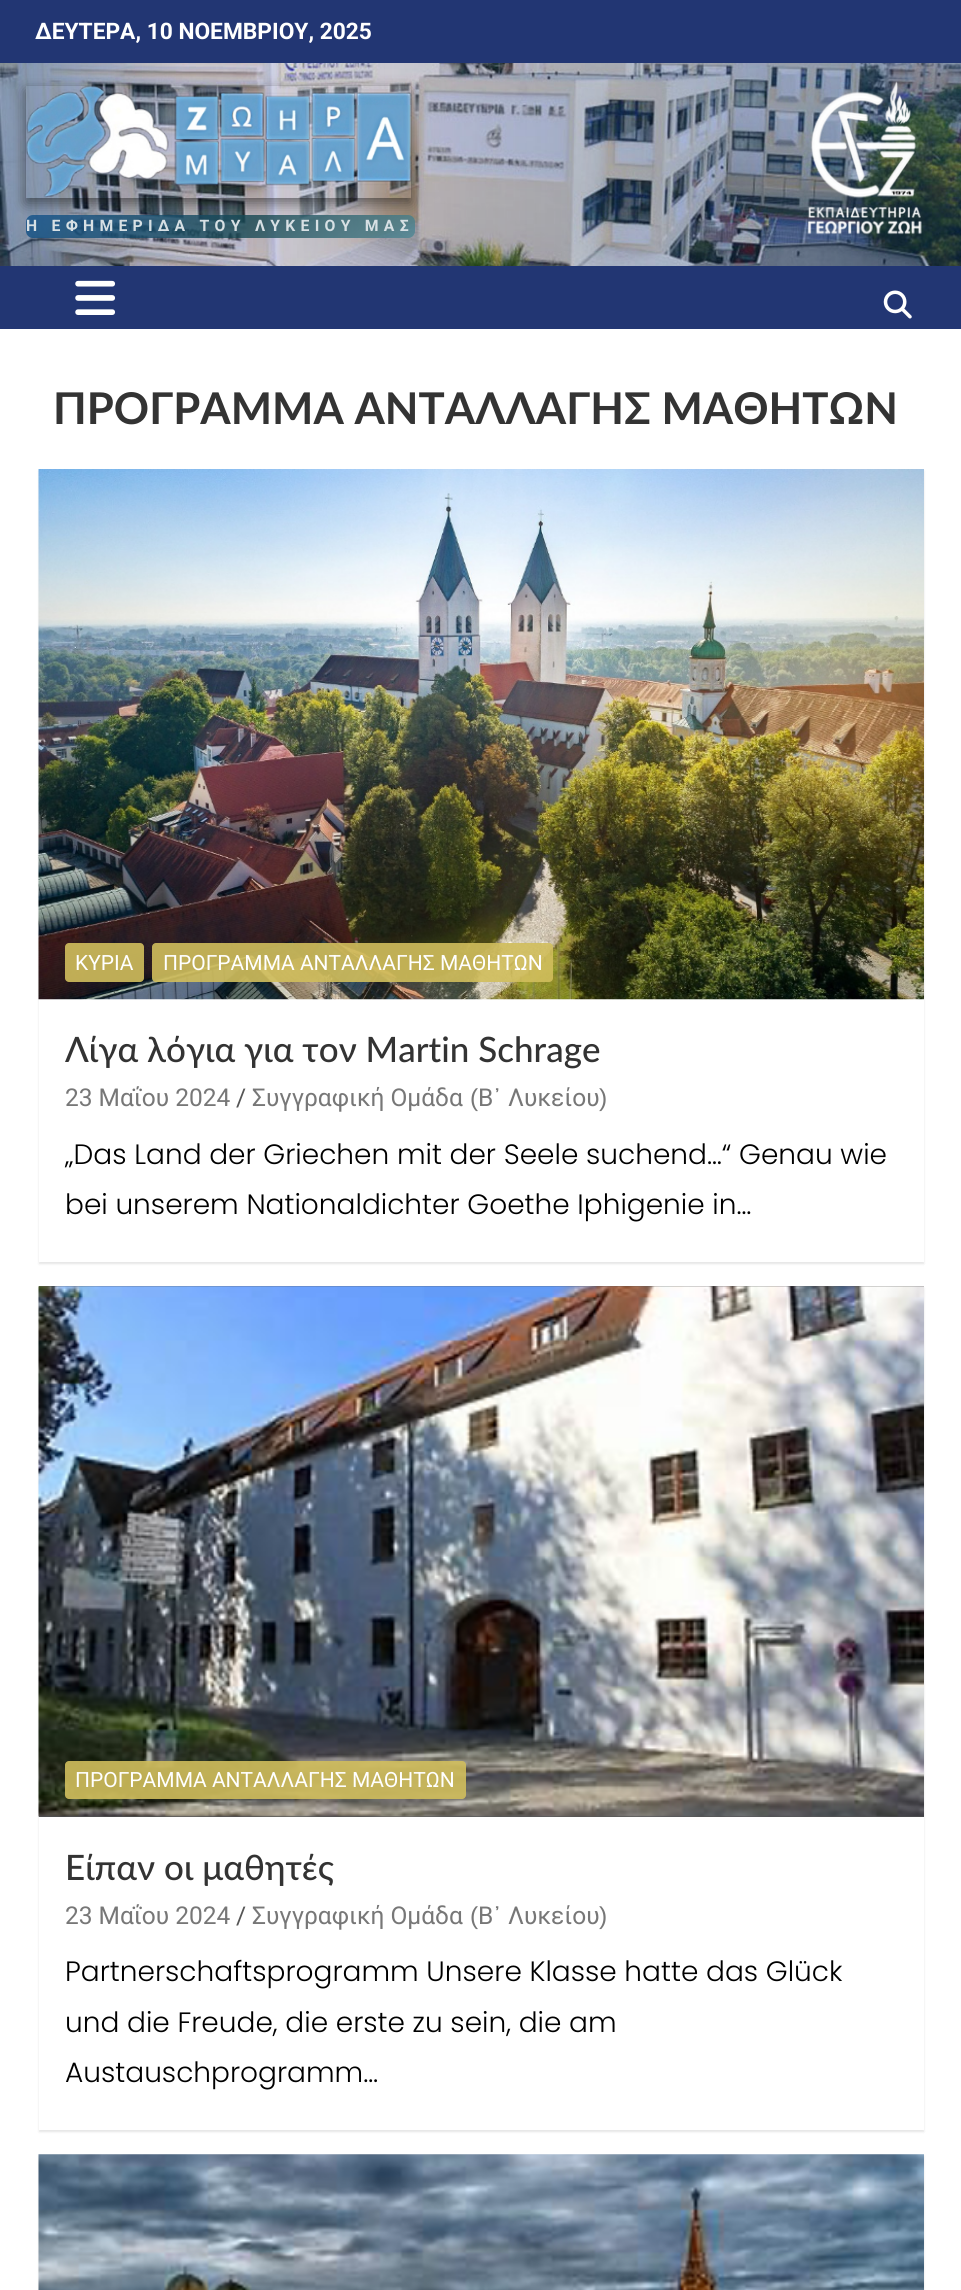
#include <cairo.h>
#include <math.h>
#include <stddef.h>


static void set_color(cairo_t *cr, unsigned color) {
    cairo_set_source_rgb(cr, (color >> 16) / 255.0, (color >> 8 & 255) / 255.0, (color & 255) / 255.0);
}

static void draw_text(cairo_t *cr, double x, double y, const char *s, const char *family, double size, int italic, int bold, unsigned color) {
    cairo_select_font_face(cr, family, italic ? CAIRO_FONT_SLANT_ITALIC : CAIRO_FONT_SLANT_NORMAL,
        bold ? CAIRO_FONT_WEIGHT_BOLD : CAIRO_FONT_WEIGHT_NORMAL);
    cairo_set_font_size(cr, size);
    set_color(cr, color);
    cairo_move_to(cr, x, y);
    cairo_show_text(cr, s);
}

static void draw_spaced(cairo_t *cr, double x, double y, const char *s, double letter, double word) {
    cairo_move_to(cr, x, y);
    while (*s) {
        char ch[5] = {0};
        int n = 0;
        do ch[n++] = *s++; while ((*s & 0xC0) == 0x80);
        cairo_show_text(cr, ch);
        cairo_rel_move_to(cr, letter + word * (*ch == ' '), 0);
    }
}

static void fill_rect(cairo_t *cr, double x, double y, double w, double h, unsigned color) {
    set_color(cr, color);
    cairo_rectangle(cr, x, y, w, h);
    cairo_fill(cr);
}

static void rounded_rect(cairo_t *cr, double x, double y, double w, double h, double r) {
    cairo_new_sub_path(cr);
    cairo_arc(cr, x + w - r, y + h - r, r, 0, M_PI / 2);
    cairo_arc(cr, x + r, y + h - r, r, M_PI / 2, M_PI);
    cairo_arc(cr, x + r, y + r, r, M_PI, 1.5 * M_PI);
    cairo_arc(cr, x + w - r, y + r, r, 1.5 * M_PI, 2 * M_PI);
    cairo_close_path(cr);
}

static void draw_shadow(cairo_t *cr, double x, double y, double w, double h, double r, double blur, double alpha) {
    cairo_push_group_with_content(cr, CAIRO_CONTENT_ALPHA);
    cairo_set_operator(cr, CAIRO_OPERATOR_SOURCE);
    for (int i = 15; i >= -15 && fmin(w, h) + blur * i / 3 > 0; i -= 2) {
        double e = blur * i / 6;
        cairo_set_source_rgba(cr, 0, 0, 0, alpha * erfc((i - 1) / 8.5) / 2);
        rounded_rect(cr, x - e, y - e, w + 2 * e, h + 2 * e, fmax(0, fmin(r + e + blur * .6, fmin(w, h) / 2 + e)));
        cairo_fill(cr);
    }
    cairo_pattern_t *soft = cairo_pop_group(cr);
    cairo_mask(cr, soft);
    cairo_pattern_destroy(soft);
}

static void draw_image(cairo_t *cr, const char *path, double x, double y, double w, double h) {
    cairo_surface_t *image = cairo_image_surface_create_from_png(path);
    cairo_save(cr);
    cairo_set_source_surface(cr, image, x, y);
    cairo_rectangle(cr, x, y, w, h);
    cairo_fill(cr);
    cairo_restore(cr);
    cairo_surface_destroy(image);
}

int main(void) {
    cairo_surface_t *surface = cairo_image_surface_create(CAIRO_FORMAT_RGB24, 961, 2290);
    cairo_t *cr = cairo_create(surface);
    cairo_font_options_t *options = cairo_font_options_create();
    cairo_font_options_set_hint_metrics(options, CAIRO_HINT_METRICS_OFF);
    cairo_font_options_set_hint_style(options, CAIRO_HINT_STYLE_NONE);
    cairo_set_font_options(cr, options);
    cairo_set_miter_limit(cr, 4);
    cairo_pattern_t *gradient;
    set_color(cr, 0xFFFFFF);
    cairo_paint(cr);
    fill_rect(cr, 0, 0, 961, 63, 0x223673);
    draw_text(cr, 35, 39, "ΔΕΥΤΕΡΑ, 10 ΝΟΕΜΒΡΙΟΥ, 2025", "Roboto", 22.75, 0, 1, 0xFFFFFF);
    draw_image(cr, "assets/img1.png", 0, 63, 961, 203);
    cairo_save(cr);
    cairo_set_fill_rule(cr, CAIRO_FILL_RULE_EVEN_ODD);
    cairo_new_path(cr);
    cairo_move_to(cr, 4, 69);
    cairo_line_to(cr, 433, 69);
    cairo_line_to(cr, 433, 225);
    cairo_line_to(cr, 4, 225);
    cairo_close_path(cr);
    cairo_move_to(cr, 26, 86);
    cairo_line_to(cr, 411, 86);
    cairo_line_to(cr, 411, 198);
    cairo_line_to(cr, 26, 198);
    cairo_close_path(cr);
    cairo_clip(cr);
    set_color(cr, 0x000000);
    draw_shadow(cr, 26, 91, 385, 112, 0, 7, 0.5);
    cairo_restore(cr);
    draw_image(cr, "assets/img2.png", 26, 85, 386, 113);
    gradient = cairo_pattern_create_linear(215, 27, 615, 427);
    cairo_pattern_add_color_stop_rgba(gradient, 0, 0.067, 0.318, 0.541, 0.8);
    cairo_pattern_add_color_stop_rgba(gradient, 0.29, 0.086, 0.275, 0.314, 0.8);
    cairo_pattern_add_color_stop_rgba(gradient, 0.67, 0.463, 0.71, 0.773, 0.8);
    cairo_pattern_add_color_stop_rgba(gradient, 1, 0.082, 0.298, 0.475, 0.8);
    cairo_set_source(cr, gradient);
    cairo_pattern_destroy(gradient);
    rounded_rect(cr, 26, 215, 389, 23, 7);
    cairo_fill(cr);
    cairo_set_font_size(cr, 15.75);
    set_color(cr, 0xD7E0E4);
    draw_spaced(cr, 26, 231, "Η ΕΦΗΜΕΡΙΔΑ ΤΟΥ ΛΥΚΕΙΟΥ ΜΑΣ", 5.25, 0);
    draw_image(cr, "assets/img3.png", 807, 81, 115, 154);
    fill_rect(cr, 0, 266, 961, 63, 0x223673);
    draw_image(cr, "assets/img4.png", 75, 280, 41, 35);
    draw_image(cr, "assets/img5.png", 883, 290, 29, 29);
    draw_text(cr, 53, 424, "ΠΡΟΓΡΑΜΜΑ ΑΝΤΑΛΛΑΓΗΣ ΜΑΘΗΤΩΝ", "Lato", 43.75, 0, 1, 0x333333);
    set_color(cr, 0x000000);
    draw_shadow(cr, 39, 471, 885, 793, 0, 1, 0.1);
    fill_rect(cr, 39, 999, 885, 263, 0xFFFFFF);
    draw_image(cr, "assets/img6.png", 38, 469, 886, 531);
    cairo_set_source_rgba(cr, 0.82, 0.745, 0.361, 0.9);
    rounded_rect(cr, 65, 943, 79, 39, 4);
    cairo_fill(cr);
    draw_text(cr, 75, 970, "ΚΥΡΙΑ", "Roboto", 21, 0, 0, 0xFFFFFF);
    cairo_set_source_rgba(cr, 0.82, 0.745, 0.361, 0.9);
    rounded_rect(cr, 152, 943, 401, 39, 4);
    cairo_fill(cr);
    draw_text(cr, 163, 970, "ΠΡΟΓΡΑΜΜΑ ΑΝΤΑΛΛΑΓΗΣ ΜΑΘΗΤΩΝ", "Roboto", 21, 0, 0, 0xFFFFFF);
    draw_text(cr, 65, 1062, "Λίγα λόγια για τον Martin Schrage", "Lato Medium", 35, 0, 0, 0x333333);
    draw_text(cr, 65, 1106, "23 Μαΐου 2024", "Roboto", 24.5, 0, 0, 0x777777);
    draw_text(cr, 236, 1106, "/", "Roboto", 24.5, 0, 0, 0x555555);
    draw_text(cr, 252, 1106, "Συγγραφική Ομάδα", "Roboto", 24.5, 0, 0, 0x777777);
    draw_text(cr, 470, 1106, "(", "Liberation Sans", 24.5, 0, 0, 0x777777);
    draw_text(cr, 478, 1106, "Β", "Roboto", 24.5, 0, 0, 0x777777);
    draw_text(cr, 493, 1106, "᾽", "Liberation Sans", 24.5, 0, 0, 0x777777);
    draw_text(cr, 508, 1106, "Λυκείου", "Roboto", 24.5, 0, 0, 0x777777);
    draw_text(cr, 599, 1106, ")", "Liberation Sans", 24.5, 0, 0, 0x777777);
    draw_text(cr, 65, 1164, "„Das Land der Griechen mit der Seele suchend…“ Genau wie", "Poppins Light", 28, 0, 0, 0x000000);
    draw_text(cr, 65, 1214, "bei unserem Nationaldichter Goethe Iphigenie in…", "Poppins Light", 28, 0, 0, 0x000000);
    set_color(cr, 0x000000);
    draw_shadow(cr, 39, 1288, 885, 844, 0, 1, 0.1);
    fill_rect(cr, 39, 1817, 885, 313, 0xFFFFFF);
    fill_rect(cr, 39, 1286, 885, 531, 0x555555);
    draw_image(cr, "assets/img7.png", 38, 1286, 886, 531);
    cairo_set_source_rgba(cr, 0.82, 0.745, 0.361, 0.9);
    rounded_rect(cr, 65, 1761, 401, 38, 4);
    cairo_fill(cr);
    draw_text(cr, 75, 1787, "ΠΡΟΓΡΑΜΜΑ ΑΝΤΑΛΛΑΓΗΣ ΜΑΘΗΤΩΝ", "Roboto", 21, 0, 0, 0xFFFFFF);
    draw_text(cr, 65, 1880, "Είπαν οι μαθητές", "Lato Medium", 35, 0, 0, 0x333333);
    draw_text(cr, 65, 1924, "23 Μαΐου 2024", "Roboto", 24.5, 0, 0, 0x777777);
    draw_text(cr, 236, 1924, "/", "Roboto", 24.5, 0, 0, 0x555555);
    draw_text(cr, 252, 1924, "Συγγραφική Ομάδα", "Roboto", 24.5, 0, 0, 0x777777);
    draw_text(cr, 470, 1924, "(", "Liberation Sans", 24.5, 0, 0, 0x777777);
    draw_text(cr, 478, 1924, "Β", "Roboto", 24.5, 0, 0, 0x777777);
    draw_text(cr, 493, 1924, "᾽", "Liberation Sans", 24.5, 0, 0, 0x777777);
    draw_text(cr, 508, 1924, "Λυκείου", "Roboto", 24.5, 0, 0, 0x777777);
    draw_text(cr, 599, 1924, ")", "Liberation Sans", 24.5, 0, 0, 0x777777);
    draw_text(cr, 65, 1981, "Partnerschaftsprogramm Unsere Klasse hatte das Glück", "Poppins Light", 28, 0, 0, 0x000000);
    draw_text(cr, 65, 2032, "und die Freude, die erste zu sein, die am", "Poppins Light", 28, 0, 0, 0x000000);
    draw_text(cr, 65, 2082, "Austauschprogramm…", "Poppins Light", 28, 0, 0, 0x000000);
    set_color(cr, 0x000000);
    draw_shadow(cr, 39, 2156, 885, 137, 0, 1, 0.1);
    draw_image(cr, "assets/img8.png", 38, 2154, 886, 136);
    cairo_surface_write_to_png(surface, "output.png");
    cairo_font_options_destroy(options);
    cairo_destroy(cr);
    cairo_surface_destroy(surface);
    return 0;
}
